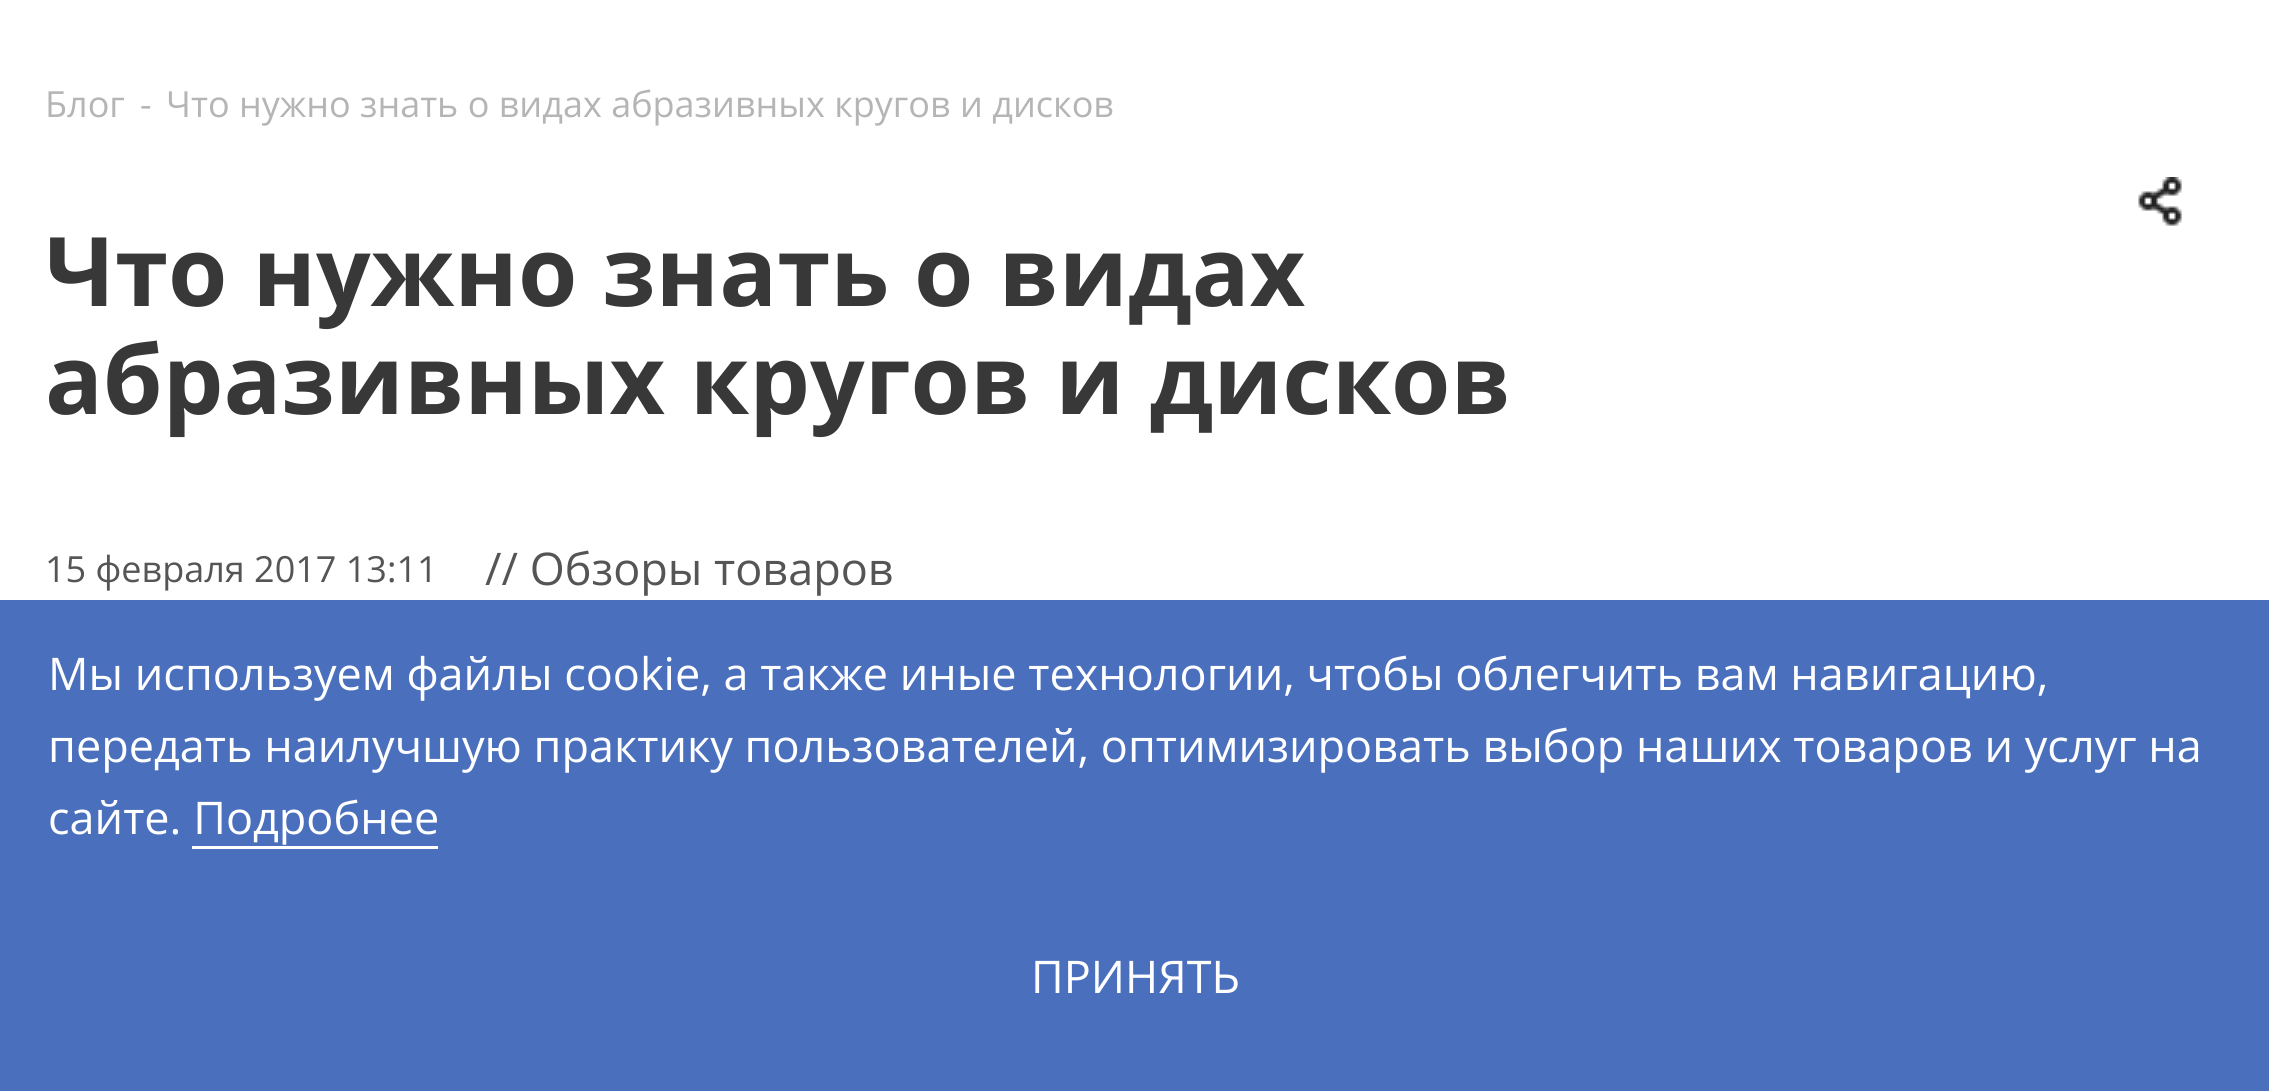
#include <cairo.h>
#include <math.h>
#include <stddef.h>


static void set_color(cairo_t *cr, unsigned color) {
    cairo_set_source_rgb(cr, (color >> 16) / 255.0, (color >> 8 & 255) / 255.0, (color & 255) / 255.0);
}

static void draw_text(cairo_t *cr, double x, double y, const char *s, const char *family, double size, int italic, int bold, unsigned color) {
    cairo_select_font_face(cr, family, italic ? CAIRO_FONT_SLANT_ITALIC : CAIRO_FONT_SLANT_NORMAL,
        bold ? CAIRO_FONT_WEIGHT_BOLD : CAIRO_FONT_WEIGHT_NORMAL);
    cairo_set_font_size(cr, size);
    set_color(cr, color);
    cairo_move_to(cr, x, y);
    cairo_show_text(cr, s);
}

static void fill_rect(cairo_t *cr, double x, double y, double w, double h, unsigned color) {
    set_color(cr, color);
    cairo_rectangle(cr, x, y, w, h);
    cairo_fill(cr);
}

static void draw_image(cairo_t *cr, const char *path, double x, double y, double w, double h) {
    cairo_surface_t *image = cairo_image_surface_create_from_png(path);
    cairo_save(cr);
    cairo_set_source_surface(cr, image, x, y);
    cairo_rectangle(cr, x, y, w, h);
    cairo_fill(cr);
    cairo_restore(cr);
    cairo_surface_destroy(image);
}

int main(void) {
    cairo_surface_t *surface = cairo_image_surface_create(CAIRO_FORMAT_RGB24, 2269, 1091);
    cairo_t *cr = cairo_create(surface);
    cairo_font_options_t *options = cairo_font_options_create();
    cairo_font_options_set_hint_metrics(options, CAIRO_HINT_METRICS_OFF);
    cairo_font_options_set_hint_style(options, CAIRO_HINT_STYLE_NONE);
    cairo_set_font_options(cr, options);
    cairo_set_miter_limit(cr, 4);
    set_color(cr, 0xFFFFFF);
    cairo_paint(cr);
    draw_text(cr, 45, 117, "Блог", "Open Sans", 36, 0, 0, 0xB6B5B5);
    draw_text(cr, 140, 117, "-", "Open Sans", 36, 0, 0, 0xB6B5B5);
    draw_text(cr, 166, 117, "Что нужно знать о видах абразивных кругов и дисков", "Open Sans", 36, 0, 0, 0xB6B5B5);
    draw_image(cr, "assets/img1.png", 2138, 177, 44, 49);
    draw_text(cr, 45, 306, "Что нужно знать о видах", "Open Sans", 96, 0, 1, 0x383838);
    draw_text(cr, 45, 414, "абразивных кругов и дисков", "Open Sans", 96, 0, 1, 0x383838);
    draw_text(cr, 45, 582, "15 февраля 2017 13:11", "Open Sans", 36, 0, 0, 0x555555);
    draw_text(cr, 485, 585, "// Обзоры товаров", "Open Sans", 45, 0, 0, 0x555555);
    fill_rect(cr, 0, 600, 2269, 491, 0x4A6FBD);
    draw_text(cr, 48, 690, "Мы используем файлы cookie, а также иные технологии, чтобы облегчить вам навигацию,", "Open Sans", 45, 0, 0, 0xFFFFFF);
    draw_text(cr, 48, 762, "передать наилучшую практику пользователей, оптимизировать выбор наших товаров и услуг на", "Open Sans", 45, 0, 0, 0xFFFFFF);
    draw_text(cr, 48, 834, "сайте. Подробнее", "Open Sans", 45, 0, 0, 0xFFFFFF);
    fill_rect(cr, 192, 846, 246, 3, 0xFFFFFF);
    draw_text(cr, 1031, 993, "ПРИНЯТЬ", "Open Sans", 45, 0, 0, 0xFFFFFF);
    cairo_surface_write_to_png(surface, "output.png");
    cairo_font_options_destroy(options);
    cairo_destroy(cr);
    cairo_surface_destroy(surface);
    return 0;
}
